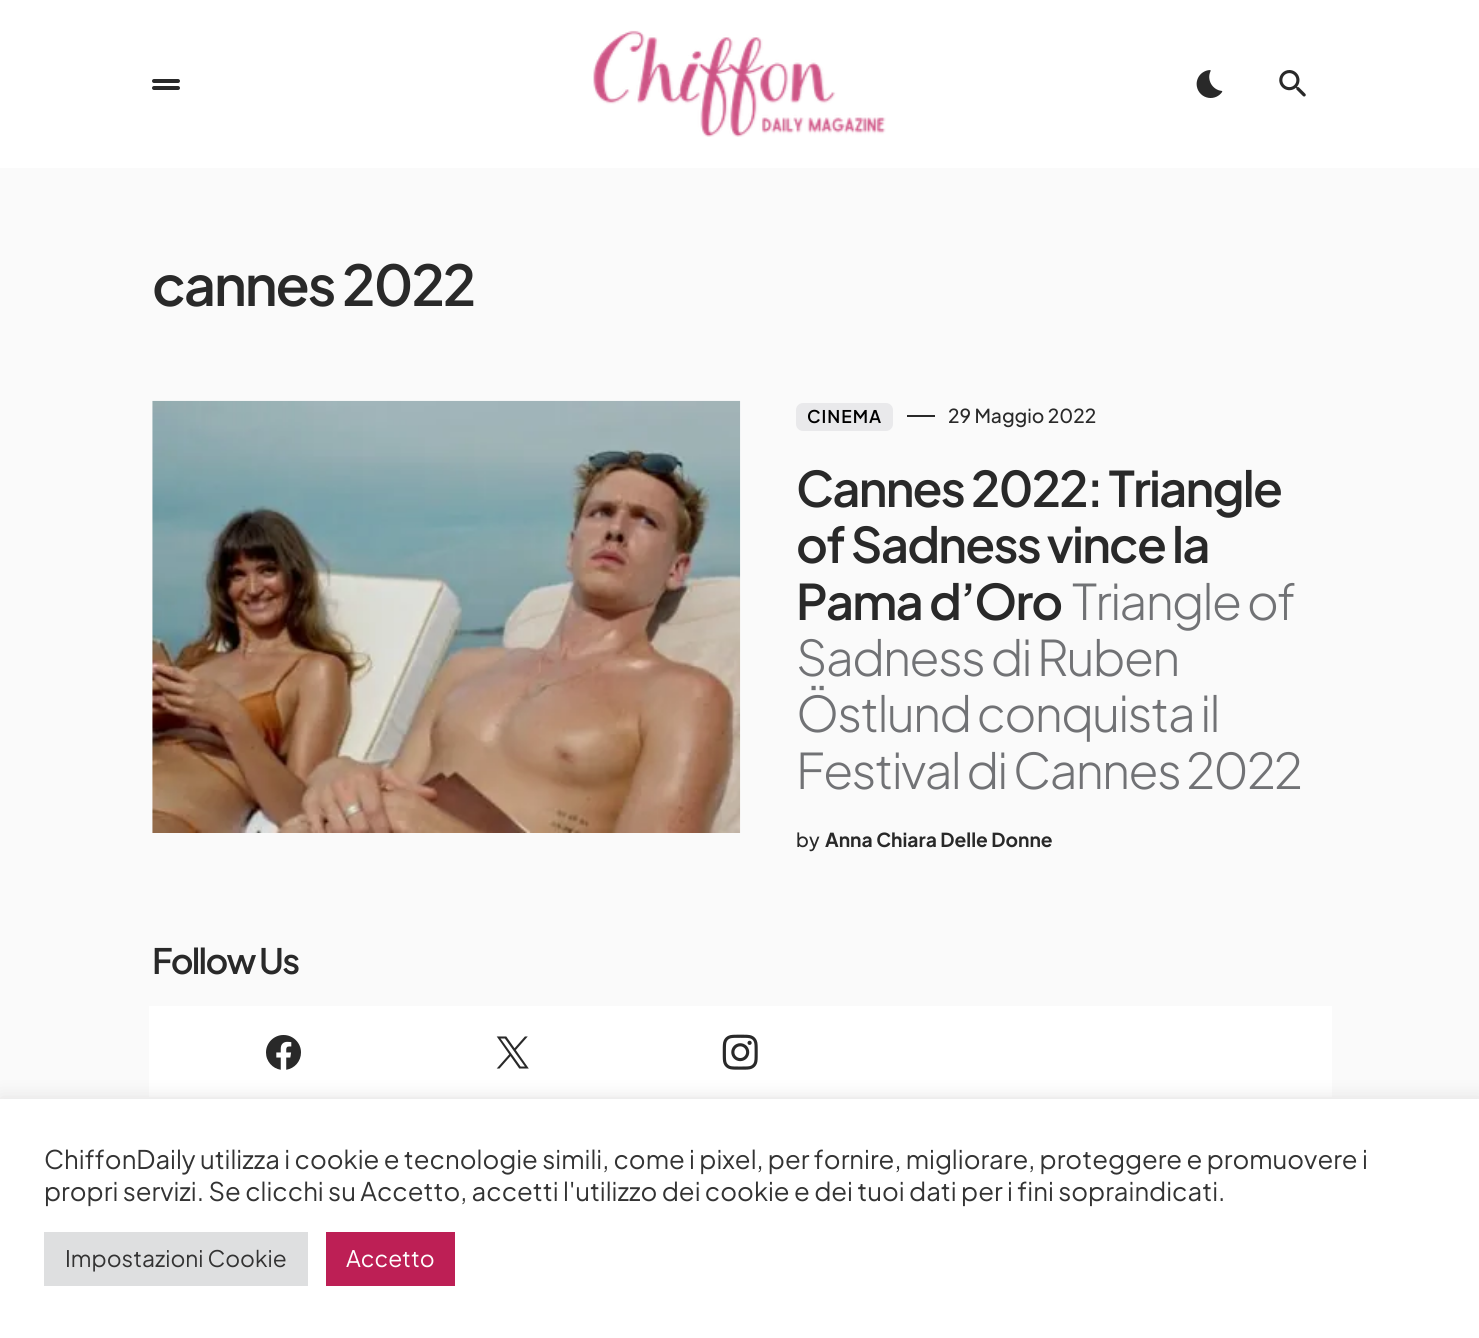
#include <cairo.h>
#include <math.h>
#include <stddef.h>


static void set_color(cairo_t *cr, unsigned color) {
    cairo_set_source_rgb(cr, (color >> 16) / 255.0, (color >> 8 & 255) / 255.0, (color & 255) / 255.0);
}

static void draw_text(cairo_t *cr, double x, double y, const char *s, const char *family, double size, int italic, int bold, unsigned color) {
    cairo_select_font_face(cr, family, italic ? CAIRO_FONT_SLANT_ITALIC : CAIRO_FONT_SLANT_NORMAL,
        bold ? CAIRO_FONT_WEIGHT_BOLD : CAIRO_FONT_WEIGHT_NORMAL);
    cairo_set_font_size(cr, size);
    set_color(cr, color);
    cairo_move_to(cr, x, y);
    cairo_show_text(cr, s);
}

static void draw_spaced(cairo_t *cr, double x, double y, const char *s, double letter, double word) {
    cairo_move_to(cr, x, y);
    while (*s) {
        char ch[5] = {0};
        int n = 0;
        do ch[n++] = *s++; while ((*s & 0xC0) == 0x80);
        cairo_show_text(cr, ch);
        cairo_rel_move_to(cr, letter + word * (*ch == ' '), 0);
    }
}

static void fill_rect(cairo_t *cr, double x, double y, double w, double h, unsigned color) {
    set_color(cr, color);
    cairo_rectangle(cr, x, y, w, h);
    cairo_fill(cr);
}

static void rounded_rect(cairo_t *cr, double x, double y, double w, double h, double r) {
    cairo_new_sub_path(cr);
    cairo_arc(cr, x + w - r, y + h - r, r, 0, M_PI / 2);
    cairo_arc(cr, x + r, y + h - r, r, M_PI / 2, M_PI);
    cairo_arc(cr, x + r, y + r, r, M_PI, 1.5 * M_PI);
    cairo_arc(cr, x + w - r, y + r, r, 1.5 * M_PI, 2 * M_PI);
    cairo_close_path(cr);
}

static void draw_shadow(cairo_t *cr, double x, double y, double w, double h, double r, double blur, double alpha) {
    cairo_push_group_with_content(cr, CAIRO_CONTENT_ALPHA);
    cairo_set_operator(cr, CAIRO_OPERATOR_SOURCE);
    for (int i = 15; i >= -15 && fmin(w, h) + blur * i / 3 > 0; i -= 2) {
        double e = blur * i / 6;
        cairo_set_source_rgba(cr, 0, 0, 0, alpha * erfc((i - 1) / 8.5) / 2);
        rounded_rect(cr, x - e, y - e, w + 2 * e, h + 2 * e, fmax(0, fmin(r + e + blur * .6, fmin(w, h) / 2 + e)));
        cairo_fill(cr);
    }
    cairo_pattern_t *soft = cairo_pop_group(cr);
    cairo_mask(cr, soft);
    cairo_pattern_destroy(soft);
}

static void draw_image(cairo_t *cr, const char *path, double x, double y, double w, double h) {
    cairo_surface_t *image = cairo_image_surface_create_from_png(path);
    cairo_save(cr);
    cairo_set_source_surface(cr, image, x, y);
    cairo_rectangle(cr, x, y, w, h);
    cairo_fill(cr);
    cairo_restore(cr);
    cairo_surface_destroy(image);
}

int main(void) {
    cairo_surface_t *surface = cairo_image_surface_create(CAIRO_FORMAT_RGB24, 1479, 1338);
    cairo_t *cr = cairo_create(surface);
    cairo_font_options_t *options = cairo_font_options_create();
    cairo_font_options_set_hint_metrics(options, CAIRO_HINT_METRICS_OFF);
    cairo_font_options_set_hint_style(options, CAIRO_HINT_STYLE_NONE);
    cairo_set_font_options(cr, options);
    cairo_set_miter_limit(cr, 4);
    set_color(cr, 0xFAFAFA);
    cairo_paint(cr);
    fill_rect(cr, 0, 0, 1479, 168, 0xFFFFFF);
    set_color(cr, 0x292929);
    rounded_rect(cr, 152, 79, 28, 4, 2);
    cairo_fill(cr);
    rounded_rect(cr, 152, 86, 28, 4, 2);
    cairo_fill(cr);
    draw_image(cr, "assets/img1.png", 593, 30, 293, 107);
    draw_image(cr, "assets/img2.png", 1196, 70, 27, 28);
    draw_image(cr, "assets/img3.png", 1279, 70, 27, 27);
    cairo_select_font_face(cr, "Plus Jakarta Sans SemiBold", CAIRO_FONT_SLANT_NORMAL, CAIRO_FONT_WEIGHT_NORMAL);
    cairo_set_font_size(cr, 56);
    draw_spaced(cr, 152, 306, "cannes 2022", -2.1, 0);
    draw_image(cr, "assets/img4.png", 152, 400, 589, 433);
    set_color(cr, 0xE9E9EB);
    rounded_rect(cr, 796, 403, 97, 28, 7);
    cairo_fill(cr);
    cairo_set_font_size(cr, 17.5);
    set_color(cr, 0x000000);
    draw_spaced(cr, 807, 423, "CINEMA", 1, 0);
    fill_rect(cr, 907, 415, 28, 2, 0x292929);
    draw_text(cr, 948, 423, "29 Maggio 2022", "Plus Jakarta Sans Medium", 19.25, 0, 0, 0x292929);
    cairo_select_font_face(cr, "Plus Jakarta Sans SemiBold", CAIRO_FONT_SLANT_NORMAL, CAIRO_FONT_WEIGHT_NORMAL);
    cairo_set_font_size(cr, 49);
    draw_spaced(cr, 796, 507, "Cannes 2022: Triangle", -1.8, 0);
    draw_spaced(cr, 796, 563, "of Sadness vince la", -1.8, 0);
    draw_spaced(cr, 796, 620, "Pama d’Oro", -1.8, 0);
    cairo_select_font_face(cr, "Plus Jakarta Sans Light", CAIRO_FONT_SLANT_NORMAL, CAIRO_FONT_WEIGHT_NORMAL);
    set_color(cr, 0x717275);
    draw_spaced(cr, 1072, 620, "Triangle of", -1.8, 0);
    draw_spaced(cr, 796, 676, "Sadness di Ruben", -1.8, 0);
    draw_spaced(cr, 796, 732, "Östlund conquista il", -1.8, 0);
    draw_spaced(cr, 796, 789, "Festival di Cannes 2022", -1.8, 0);
    draw_text(cr, 796, 847, "by", "Plus Jakarta Sans Medium", 19.25, 0, 0, 0x292929);
    draw_text(cr, 825, 847, "Anna Chiara Delle Donne", "Plus Jakarta Sans", 19.25, 0, 1, 0x292929);
    cairo_select_font_face(cr, "Plus Jakarta Sans SemiBold", CAIRO_FONT_SLANT_NORMAL, CAIRO_FONT_WEIGHT_NORMAL);
    cairo_set_font_size(cr, 35);
    draw_spaced(cr, 152, 974, "Follow Us", -1.75, 0);
    fill_rect(cr, 149, 1006, 1183, 91, 0xFFFFFF);
    draw_image(cr, "assets/img5.png", 266, 1035, 35, 35);
    draw_image(cr, "assets/img6.png", 496, 1036, 33, 33);
    draw_image(cr, "assets/img7.png", 722, 1034, 36, 36);
    set_color(cr, 0xACABAB);
    draw_shadow(cr, 0, 1097, 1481, 240, 0, 9, 0.3);
    fill_rect(cr, 0, 1099, 1479, 239, 0xFFFFFF);
    draw_text(cr, 44, 1169, "ChiffonDaily utilizza i cookie e tecnologie simili, come i pixel, per fornire, migliorare, proteggere e promuovere i", "Plus Jakarta Sans", 25.67, 0, 0, 0x333333);
    draw_text(cr, 44, 1201, "propri servizi. Se clicchi su Accetto, accetti l'utilizzo dei cookie e dei tuoi dati per i fini sopraindicati.", "Plus Jakarta Sans", 25.67, 0, 0, 0x333333);
    fill_rect(cr, 44, 1232, 264, 54, 0xDEDFE0);
    draw_text(cr, 65, 1267, "Impostazioni Cookie", "Plus Jakarta Sans", 22.75, 0, 0, 0x333333);
    fill_rect(cr, 326, 1232, 129, 54, 0xBD1F55);
    draw_text(cr, 346, 1267, "Accetto", "Plus Jakarta Sans", 22.75, 0, 0, 0xFFFFFF);
    cairo_surface_write_to_png(surface, "output.png");
    cairo_font_options_destroy(options);
    cairo_destroy(cr);
    cairo_surface_destroy(surface);
    return 0;
}
